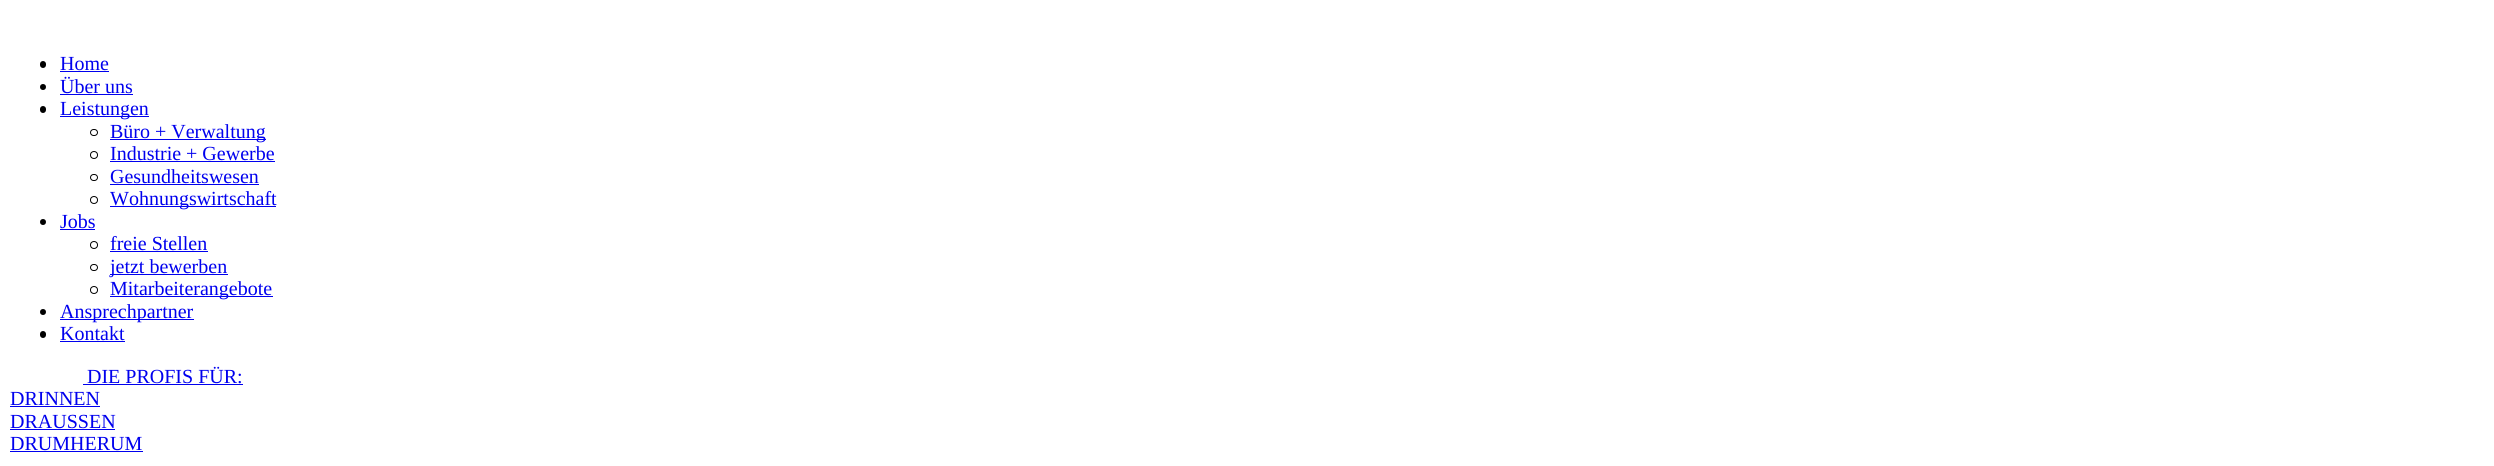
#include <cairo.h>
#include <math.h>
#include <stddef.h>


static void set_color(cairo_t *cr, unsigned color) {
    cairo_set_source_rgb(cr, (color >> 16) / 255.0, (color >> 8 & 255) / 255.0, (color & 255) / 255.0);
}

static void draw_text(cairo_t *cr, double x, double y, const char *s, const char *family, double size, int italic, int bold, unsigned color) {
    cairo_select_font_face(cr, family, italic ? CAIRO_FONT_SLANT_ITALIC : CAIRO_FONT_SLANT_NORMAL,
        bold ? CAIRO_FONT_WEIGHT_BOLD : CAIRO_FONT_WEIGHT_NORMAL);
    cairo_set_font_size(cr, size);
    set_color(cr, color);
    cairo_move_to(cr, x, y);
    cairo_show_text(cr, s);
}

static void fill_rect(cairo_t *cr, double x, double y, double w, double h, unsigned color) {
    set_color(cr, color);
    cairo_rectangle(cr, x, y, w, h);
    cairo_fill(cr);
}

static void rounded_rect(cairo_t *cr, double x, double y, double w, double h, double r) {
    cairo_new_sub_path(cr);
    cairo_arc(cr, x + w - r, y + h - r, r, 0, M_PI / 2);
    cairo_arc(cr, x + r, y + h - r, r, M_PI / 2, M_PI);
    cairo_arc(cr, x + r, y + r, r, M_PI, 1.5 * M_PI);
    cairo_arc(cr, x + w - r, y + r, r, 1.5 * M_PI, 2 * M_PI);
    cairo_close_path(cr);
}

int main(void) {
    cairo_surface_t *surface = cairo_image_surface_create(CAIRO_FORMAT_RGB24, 2494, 466);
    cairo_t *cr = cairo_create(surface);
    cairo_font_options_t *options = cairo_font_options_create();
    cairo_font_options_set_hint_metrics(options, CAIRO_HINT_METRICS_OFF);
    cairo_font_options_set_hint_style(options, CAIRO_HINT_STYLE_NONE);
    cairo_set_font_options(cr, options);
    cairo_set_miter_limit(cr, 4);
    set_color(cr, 0xFFFFFF);
    cairo_paint(cr);
    set_color(cr, 0x000000);
    rounded_rect(cr, 40, 61, 6, 7, 3);
    cairo_fill(cr);
    draw_text(cr, 60, 70, "Home", "Liberation Serif", 20, 0, 0, 0x0000EE);
    fill_rect(cr, 60, 71, 49, 1, 0x0000EE);
    set_color(cr, 0x000000);
    cairo_new_path(cr);
    cairo_arc(cr, 43, 87, 3, 0, 2 * M_PI);
    cairo_fill(cr);
    draw_text(cr, 60, 93, "Über uns", "Liberation Serif", 20, 0, 0, 0x0000EE);
    fill_rect(cr, 60, 94, 73, 1, 0x0000EE);
    set_color(cr, 0x000000);
    rounded_rect(cr, 40, 106, 6, 7, 3);
    cairo_fill(cr);
    fill_rect(cr, 60, 116, 89, 1, 0x0000EE);
    draw_text(cr, 60, 115, "Leistungen", "Liberation Serif", 20, 0, 0, 0x0000EE);
    rounded_rect(cr, 90.5, 129.5, 7, 6, 3);
    set_color(cr, 0x000000);
    cairo_set_line_width(cr, 1);
    cairo_stroke(cr);
    fill_rect(cr, 110, 139, 156, 1, 0x0000EE);
    draw_text(cr, 110, 138, "Büro + Verwaltung", "Liberation Serif", 20, 0, 0, 0x0000EE);
    cairo_new_path(cr);
    cairo_arc(cr, 94, 155, 3.5, 0, 2 * M_PI);
    set_color(cr, 0x000000);
    cairo_stroke(cr);
    draw_text(cr, 110, 160, "Industrie + Gewerbe", "Liberation Serif", 20, 0, 0, 0x0000EE);
    fill_rect(cr, 110, 161, 165, 1, 0x0000EE);
    rounded_rect(cr, 90.5, 174.5, 7, 6, 3);
    set_color(cr, 0x000000);
    cairo_stroke(cr);
    draw_text(cr, 110, 183, "Gesundheitswesen", "Liberation Serif", 20, 0, 0, 0x0000EE);
    fill_rect(cr, 110, 184, 149, 1, 0x0000EE);
    cairo_new_path(cr);
    cairo_arc(cr, 94, 200, 3.5, 0, 2 * M_PI);
    set_color(cr, 0x000000);
    cairo_stroke(cr);
    fill_rect(cr, 110, 206, 166, 1, 0x0000EE);
    draw_text(cr, 110, 205, "Wohnungswirtschaft", "Liberation Serif", 20, 0, 0, 0x0000EE);
    set_color(cr, 0x000000);
    cairo_new_path(cr);
    cairo_arc(cr, 43, 222, 3, 0, 2 * M_PI);
    cairo_fill(cr);
    draw_text(cr, 60, 228, "Jobs", "Liberation Serif", 20, 0, 0, 0x0000EE);
    fill_rect(cr, 60, 229, 35, 1, 0x0000EE);
    cairo_new_path(cr);
    cairo_arc(cr, 94, 245, 3.5, 0, 2 * M_PI);
    set_color(cr, 0x000000);
    cairo_stroke(cr);
    draw_text(cr, 110, 250, "freie Stellen", "Liberation Serif", 20, 0, 0, 0x0000EE);
    fill_rect(cr, 110, 251, 98, 1, 0x0000EE);
    rounded_rect(cr, 90.5, 264.5, 7, 6, 3);
    set_color(cr, 0x000000);
    cairo_stroke(cr);
    fill_rect(cr, 110, 274, 118, 1, 0x0000EE);
    draw_text(cr, 110, 273, "jetzt bewerben", "Liberation Serif", 20, 0, 0, 0x0000EE);
    cairo_new_path(cr);
    cairo_arc(cr, 94, 290, 3.5, 0, 2 * M_PI);
    set_color(cr, 0x000000);
    cairo_stroke(cr);
    fill_rect(cr, 110, 296, 163, 1, 0x0000EE);
    draw_text(cr, 110, 295, "Mitarbeiterangebote", "Liberation Serif", 20, 0, 0, 0x0000EE);
    set_color(cr, 0x000000);
    cairo_new_path(cr);
    cairo_arc(cr, 43, 312, 3, 0, 2 * M_PI);
    cairo_fill(cr);
    fill_rect(cr, 60, 319, 134, 1, 0x0000EE);
    draw_text(cr, 60, 318, "Ansprechpartner", "Liberation Serif", 20, 0, 0, 0x0000EE);
    set_color(cr, 0x000000);
    rounded_rect(cr, 40, 331, 6, 7, 3);
    cairo_fill(cr);
    draw_text(cr, 60, 340, "Kontakt", "Liberation Serif", 20, 0, 0, 0x0000EE);
    fill_rect(cr, 60, 341, 65, 1, 0x0000EE);
    draw_text(cr, 87, 383, "DIE PROFIS FÜR:", "Liberation Serif", 20, 0, 0, 0x0000EE);
    fill_rect(cr, 83, 384, 160, 1, 0x0000EE);
    draw_text(cr, 10, 405, "DRINNEN", "Liberation Serif", 20, 0, 0, 0x0000EE);
    fill_rect(cr, 10, 406, 90, 1, 0x0000EE);
    draw_text(cr, 10, 428, "DRAUSSEN", "Liberation Serif", 20, 0, 0, 0x0000EE);
    fill_rect(cr, 10, 429, 105, 1, 0x0000EE);
    draw_text(cr, 10, 450, "DRUMHERUM", "Liberation Serif", 20, 0, 0, 0x0000EE);
    fill_rect(cr, 10, 451, 133, 1, 0x0000EE);
    cairo_surface_write_to_png(surface, "output.png");
    cairo_font_options_destroy(options);
    cairo_destroy(cr);
    cairo_surface_destroy(surface);
    return 0;
}
